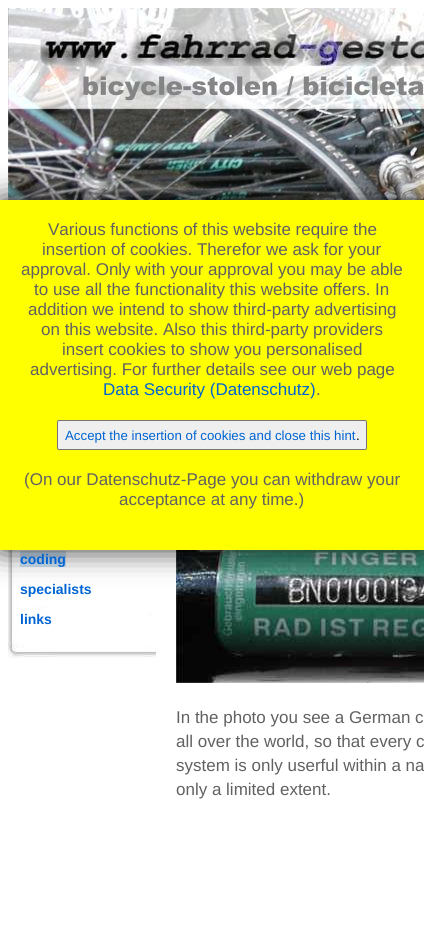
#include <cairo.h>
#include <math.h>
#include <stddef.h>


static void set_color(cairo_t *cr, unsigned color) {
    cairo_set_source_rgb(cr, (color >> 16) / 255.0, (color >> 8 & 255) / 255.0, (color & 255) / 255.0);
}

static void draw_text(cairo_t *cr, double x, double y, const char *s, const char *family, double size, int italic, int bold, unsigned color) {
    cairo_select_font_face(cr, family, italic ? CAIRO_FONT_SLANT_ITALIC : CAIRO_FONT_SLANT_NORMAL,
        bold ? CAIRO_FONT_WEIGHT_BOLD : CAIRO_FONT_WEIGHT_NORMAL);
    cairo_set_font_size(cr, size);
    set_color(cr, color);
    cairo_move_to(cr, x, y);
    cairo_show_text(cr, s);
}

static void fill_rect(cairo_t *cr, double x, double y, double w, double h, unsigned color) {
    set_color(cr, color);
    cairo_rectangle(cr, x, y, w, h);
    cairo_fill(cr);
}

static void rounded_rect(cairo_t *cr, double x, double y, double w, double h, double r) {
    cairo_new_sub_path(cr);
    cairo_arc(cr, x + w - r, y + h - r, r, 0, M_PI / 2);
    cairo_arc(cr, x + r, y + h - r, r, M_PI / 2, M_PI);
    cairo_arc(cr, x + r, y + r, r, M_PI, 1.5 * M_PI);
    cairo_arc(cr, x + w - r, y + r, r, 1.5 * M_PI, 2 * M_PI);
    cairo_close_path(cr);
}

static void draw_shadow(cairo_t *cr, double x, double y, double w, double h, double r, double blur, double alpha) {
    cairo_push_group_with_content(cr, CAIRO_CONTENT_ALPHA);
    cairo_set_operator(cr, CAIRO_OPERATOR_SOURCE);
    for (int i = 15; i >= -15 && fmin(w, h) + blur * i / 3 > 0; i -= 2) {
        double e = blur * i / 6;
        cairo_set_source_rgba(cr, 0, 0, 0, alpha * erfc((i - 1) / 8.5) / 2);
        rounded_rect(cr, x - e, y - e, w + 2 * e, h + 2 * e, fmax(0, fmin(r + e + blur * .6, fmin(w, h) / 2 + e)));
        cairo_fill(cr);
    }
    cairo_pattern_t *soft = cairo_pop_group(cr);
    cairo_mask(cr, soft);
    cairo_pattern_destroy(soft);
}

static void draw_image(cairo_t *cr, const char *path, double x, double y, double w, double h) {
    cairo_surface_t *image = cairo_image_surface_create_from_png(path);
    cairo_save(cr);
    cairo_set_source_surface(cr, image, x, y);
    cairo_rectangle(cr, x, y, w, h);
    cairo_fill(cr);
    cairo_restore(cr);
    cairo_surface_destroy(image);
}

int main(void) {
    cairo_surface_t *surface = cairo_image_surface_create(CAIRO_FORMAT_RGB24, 424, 932);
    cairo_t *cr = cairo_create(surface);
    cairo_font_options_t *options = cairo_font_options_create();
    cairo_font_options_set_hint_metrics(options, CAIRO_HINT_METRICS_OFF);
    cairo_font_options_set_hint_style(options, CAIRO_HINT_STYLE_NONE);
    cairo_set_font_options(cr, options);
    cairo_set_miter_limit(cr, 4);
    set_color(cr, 0xFFFFFF);
    cairo_paint(cr);
    draw_image(cr, "assets/img1.png", 8, 8, 416, 192);
    draw_image(cr, "assets/img2.png", 176, 550, 248, 133);
    draw_image(cr, "assets/img3.png", 8, 550, 148, 108);
    fill_rect(cr, 20, 551, 46, 16, 0xCEE3F6);
    fill_rect(cr, 64, 584, 2, 4, 0xFFFFFF);
    set_color(cr, 0x000000);
    draw_shadow(cr, 0, 200, 424, 350, 0, 15, 0.8);
    fill_rect(cr, 0, 200, 424, 350, 0xFFFF00);
    draw_text(cr, 48, 235, "Various functions of this website require the", "Liberation Sans", 17, 0, 0, 0x616161);
    draw_text(cr, 42, 255, "insertion of cookies. Therefor we ask for your", "Liberation Sans", 17, 0, 0, 0x616161);
    draw_text(cr, 21, 275, "approval. Only with your approval you may be able", "Liberation Sans", 17, 0, 0, 0x616161);
    draw_text(cr, 34, 295, "to use all the functionality this website offers. In", "Liberation Sans", 17, 0, 0, 0x616161);
    draw_text(cr, 28, 315, "addition we intend to show third-party advertising", "Liberation Sans", 17, 0, 0, 0x616161);
    draw_text(cr, 41, 335, "on this website. Also this third-party providers", "Liberation Sans", 17, 0, 0, 0x616161);
    draw_text(cr, 62, 355, "insert cookies to show you personalised", "Liberation Sans", 17, 0, 0, 0x616161);
    draw_text(cr, 30, 375, "advertising. For further details see our web page", "Liberation Sans", 17, 0, 0, 0x616161);
    draw_text(cr, 103, 395, "Data Security (Datenschutz)", "Liberation Sans", 17, 0, 0, 0x0064D2);
    draw_text(cr, 316, 395, ".", "Liberation Sans", 17, 0, 0, 0x616161);
    set_color(cr, 0xEFEFEF);
    rounded_rect(cr, 57.5, 420.5, 309, 29, 1.5);
    cairo_fill_preserve(cr);
    set_color(cr, 0x767676);
    cairo_set_line_width(cr, 1);
    cairo_stroke(cr);
    draw_text(cr, 65, 440, "Accept the insertion of cookies and close this hint", "Liberation Sans", 13.3, 0, 0, 0x0064D2);
    draw_text(cr, 356, 440, ".", "Liberation Sans", 13.3, 0, 0, 0x000000);
    draw_text(cr, 24, 485, "(On our Datenschutz-Page you can withdraw your", "Liberation Sans", 17, 0, 0, 0x616161);
    draw_text(cr, 119, 505, "acceptance at any time.)", "Liberation Sans", 17, 0, 0, 0x616161);
    draw_text(cr, 176, 723, "In the photo you see a German c", "Liberation Sans", 17, 0, 0, 0x616161);
    draw_text(cr, 176, 747, "all over the world, so that every c", "Liberation Sans", 17, 0, 0, 0x616161);
    draw_text(cr, 176, 771, "system is only userful within a na", "Liberation Sans", 17, 0, 0, 0x616161);
    draw_text(cr, 176, 795, "only a limited extent.", "Liberation Sans", 17, 0, 0, 0x616161);
    draw_text(cr, 20, 564, "coding", "Liberation Sans", 14, 0, 1, 0x0064D2);
    draw_text(cr, 20, 594, "specialists", "Liberation Sans", 14, 0, 1, 0x0064D2);
    fill_rect(cr, 32, 611, 13, 5, 0xFFFFFF);
    draw_text(cr, 20, 624, "links", "Liberation Sans", 14, 0, 1, 0x0064D2);
    cairo_surface_write_to_png(surface, "output.png");
    cairo_font_options_destroy(options);
    cairo_destroy(cr);
    cairo_surface_destroy(surface);
    return 0;
}
